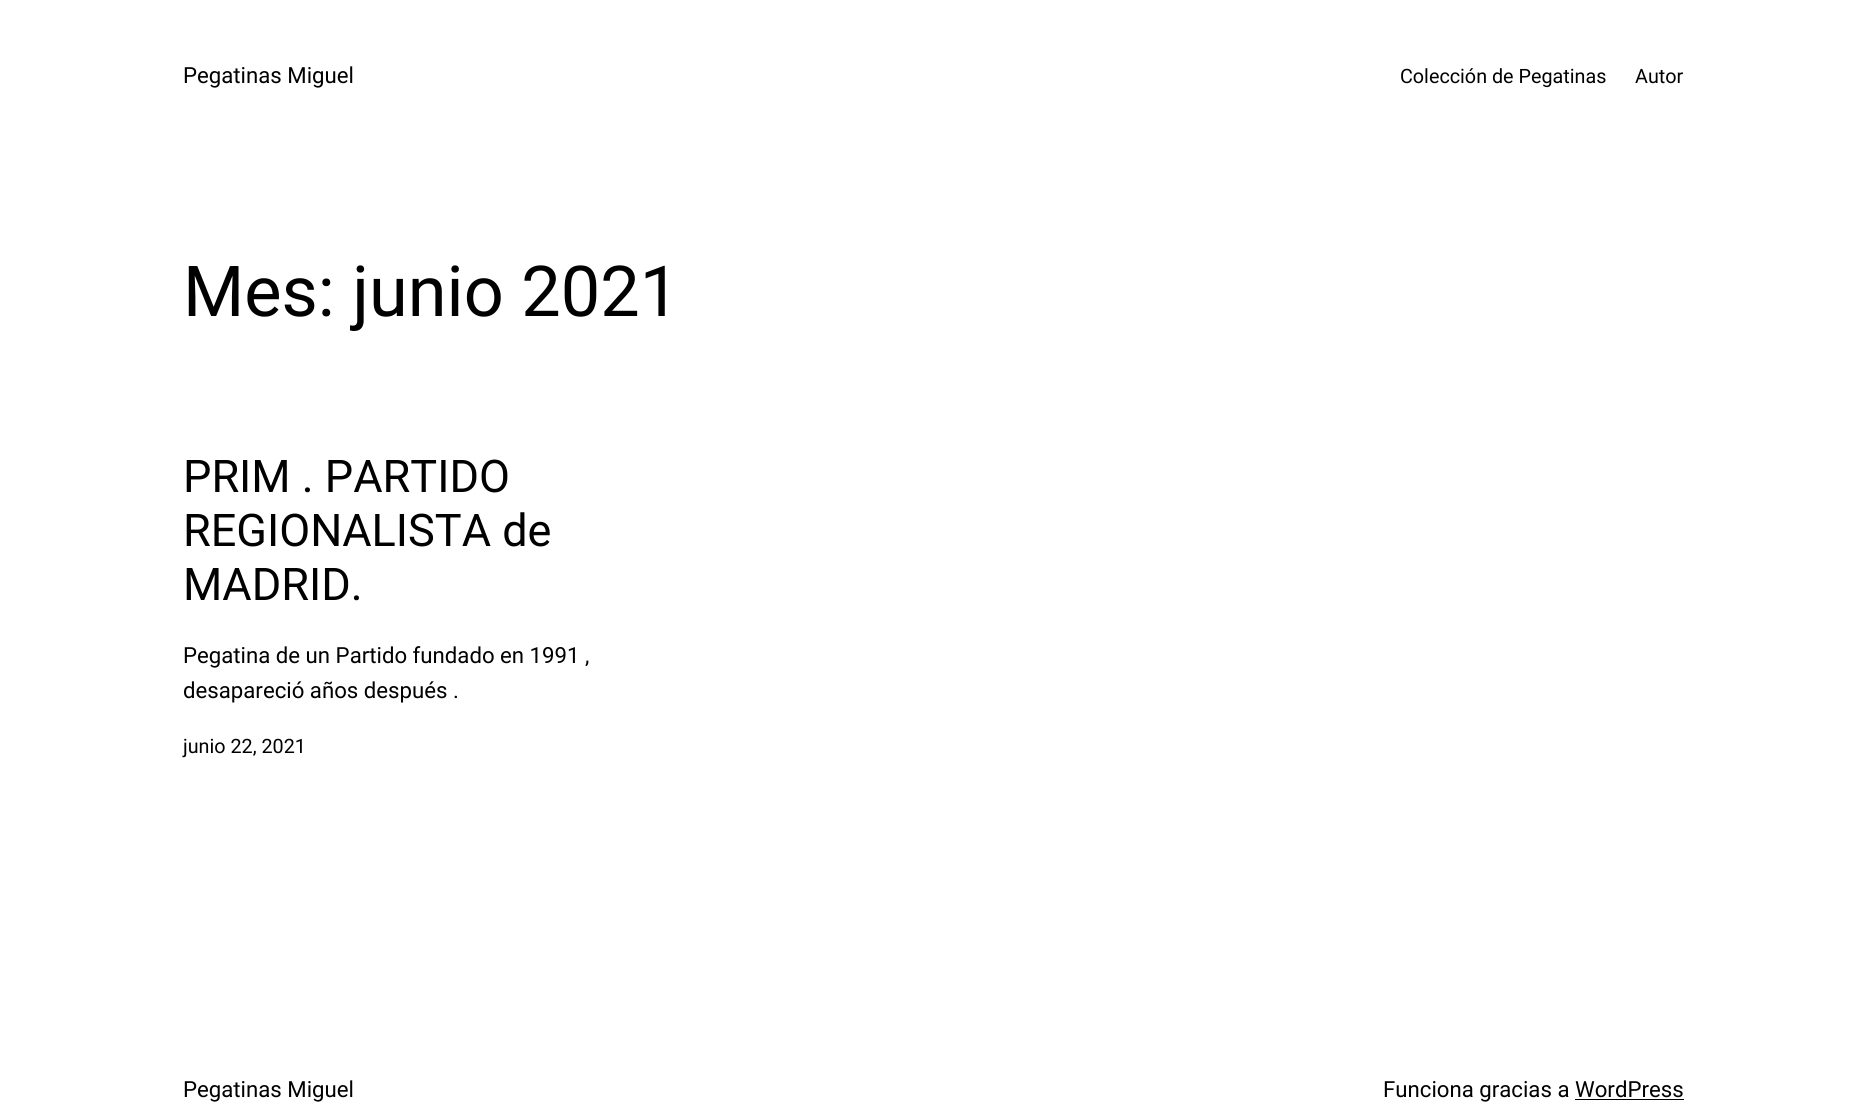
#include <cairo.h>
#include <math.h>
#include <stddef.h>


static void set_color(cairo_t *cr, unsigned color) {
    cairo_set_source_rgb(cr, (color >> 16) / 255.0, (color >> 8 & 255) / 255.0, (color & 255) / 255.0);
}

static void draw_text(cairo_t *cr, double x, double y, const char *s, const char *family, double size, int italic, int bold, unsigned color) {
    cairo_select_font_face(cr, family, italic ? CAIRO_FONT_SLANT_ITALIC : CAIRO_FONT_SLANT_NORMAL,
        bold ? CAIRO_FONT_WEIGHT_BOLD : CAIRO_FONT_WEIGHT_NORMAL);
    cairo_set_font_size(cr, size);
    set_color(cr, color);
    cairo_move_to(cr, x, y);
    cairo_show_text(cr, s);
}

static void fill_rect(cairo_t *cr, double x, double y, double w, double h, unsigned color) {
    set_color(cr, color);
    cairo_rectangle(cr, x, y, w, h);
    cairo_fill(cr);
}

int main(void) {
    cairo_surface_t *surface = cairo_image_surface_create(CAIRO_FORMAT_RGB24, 1866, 1104);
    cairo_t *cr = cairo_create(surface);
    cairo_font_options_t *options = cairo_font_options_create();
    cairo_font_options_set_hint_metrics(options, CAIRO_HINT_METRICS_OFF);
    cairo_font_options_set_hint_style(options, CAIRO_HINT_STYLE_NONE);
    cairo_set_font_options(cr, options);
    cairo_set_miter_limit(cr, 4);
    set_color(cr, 0xFFFFFF);
    cairo_paint(cr);
    draw_text(cr, 183, 83, "Pegatinas Miguel", "Roboto", 22.2, 0, 0, 0x000000);
    draw_text(cr, 1400, 83, "Colección de Pegatinas", "Roboto", 19.75, 0, 0, 0x000000);
    draw_text(cr, 1635, 83, "Autor", "Roboto", 19.75, 0, 0, 0x000000);
    draw_text(cr, 183, 316, "Mes: junio 2021", "Roboto", 70.25, 0, 0, 0x000000);
    draw_text(cr, 183, 492, "PRIM . PARTIDO", "Roboto", 45, 0, 0, 0x000000);
    draw_text(cr, 183, 546, "REGIONALISTA de", "Roboto", 45, 0, 0, 0x000000);
    draw_text(cr, 183, 600, "MADRID.", "Roboto", 45, 0, 0, 0x000000);
    draw_text(cr, 183, 663, "Pegatina de un Partido fundado en 1991 ,", "Roboto", 22.2, 0, 0, 0x000000);
    draw_text(cr, 183, 698, "desapareció años después .", "Roboto", 22.2, 0, 0, 0x000000);
    draw_text(cr, 183, 753, "junio 22, 2021", "Roboto", 19.75, 0, 0, 0x000000);
    draw_text(cr, 183, 1097, "Pegatinas Miguel", "Roboto", 22.2, 0, 0, 0x000000);
    draw_text(cr, 1383, 1097, "Funciona gracias a WordPress", "Roboto", 22.2, 0, 0, 0x000000);
    fill_rect(cr, 1575, 1099, 109, 1, 0x000000);
    cairo_surface_write_to_png(surface, "output.png");
    cairo_font_options_destroy(options);
    cairo_destroy(cr);
    cairo_surface_destroy(surface);
    return 0;
}
